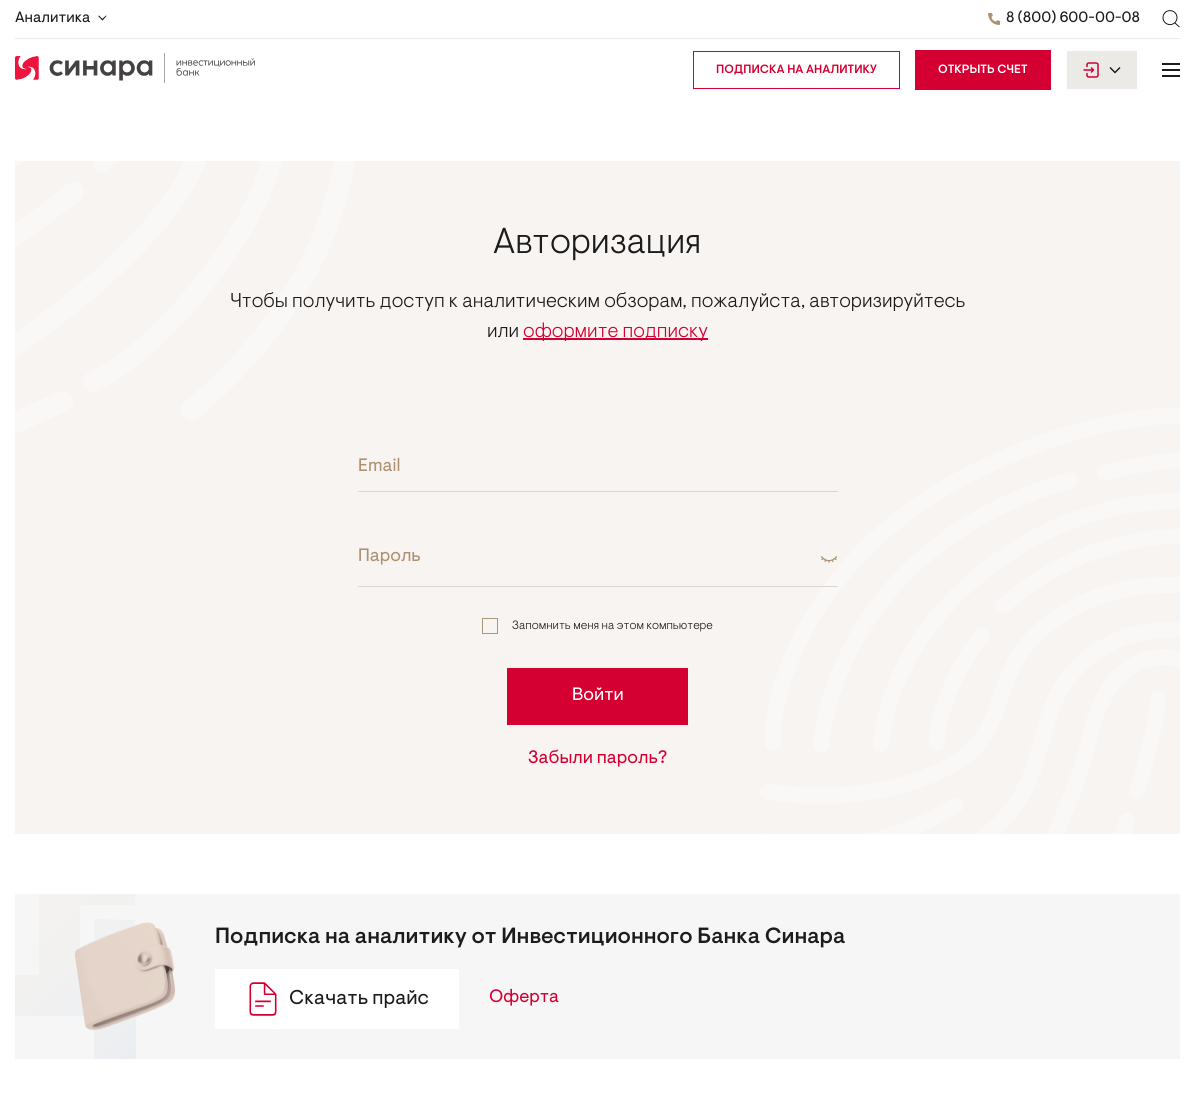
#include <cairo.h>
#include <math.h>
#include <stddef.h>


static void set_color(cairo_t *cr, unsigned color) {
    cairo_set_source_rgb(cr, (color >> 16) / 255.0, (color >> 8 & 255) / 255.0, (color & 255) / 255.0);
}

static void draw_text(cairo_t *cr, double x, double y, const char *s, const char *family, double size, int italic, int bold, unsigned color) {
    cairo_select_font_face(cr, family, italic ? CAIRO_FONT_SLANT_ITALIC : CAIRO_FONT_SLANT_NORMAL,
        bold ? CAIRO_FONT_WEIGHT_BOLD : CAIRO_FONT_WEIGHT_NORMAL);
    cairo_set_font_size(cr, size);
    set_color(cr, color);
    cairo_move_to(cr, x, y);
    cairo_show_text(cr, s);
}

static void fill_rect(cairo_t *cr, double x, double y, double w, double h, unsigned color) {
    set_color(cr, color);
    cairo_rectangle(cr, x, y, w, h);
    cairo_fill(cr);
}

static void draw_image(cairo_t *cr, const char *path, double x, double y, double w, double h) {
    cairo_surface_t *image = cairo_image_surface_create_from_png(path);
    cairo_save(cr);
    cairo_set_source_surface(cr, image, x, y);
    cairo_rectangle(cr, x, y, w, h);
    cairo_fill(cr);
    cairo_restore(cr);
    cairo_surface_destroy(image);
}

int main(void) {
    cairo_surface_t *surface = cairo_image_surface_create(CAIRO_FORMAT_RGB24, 1195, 1097);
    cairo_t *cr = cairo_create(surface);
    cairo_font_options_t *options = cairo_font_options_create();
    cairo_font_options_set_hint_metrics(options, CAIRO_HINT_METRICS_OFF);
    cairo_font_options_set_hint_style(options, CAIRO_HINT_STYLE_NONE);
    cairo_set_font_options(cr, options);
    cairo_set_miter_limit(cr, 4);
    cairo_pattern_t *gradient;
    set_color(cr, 0xFFFFFF);
    cairo_paint(cr);
    fill_rect(cr, 15, 38, 1165, 1, 0xECEAE7);
    draw_text(cr, 15, 22, "Аналитика", "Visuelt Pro", 15, 0, 0, 0x1C1C1C);
    cairo_new_path(cr);
    cairo_move_to(cr, 106, 15.5);
    cairo_line_to(cr, 106.5, 16);
    cairo_line_to(cr, 102.5, 20.5);
    cairo_line_to(cr, 101.5, 19.5);
    cairo_close_path(cr);
    cairo_fill(cr);
    cairo_new_path(cr);
    cairo_move_to(cr, 99, 15.5);
    cairo_line_to(cr, 103, 19.5);
    cairo_line_to(cr, 102.5, 20.5);
    cairo_line_to(cr, 98, 16);
    cairo_close_path(cr);
    cairo_fill(cr);
    draw_image(cr, "assets/img1.png", 988, 13, 12, 12);
    draw_text(cr, 1006, 22, "8 (800) 600-00-08", "Visuelt Pro", 15, 0, 0, 0x1C1C1C);
    draw_image(cr, "assets/img2.png", 1162, 10, 18, 18);
    cairo_rectangle(cr, 693.5, 51.5, 206, 37);
    set_color(cr, 0xD50032);
    cairo_set_line_width(cr, 1);
    cairo_stroke(cr);
    draw_text(cr, 716, 73, "ПОДПИСКА НА АНАЛИТИКУ", "Visuelt Pro Medium", 12, 0, 0, 0xD50032);
    fill_rect(cr, 915, 50, 136, 40, 0xD50032);
    draw_text(cr, 938, 73, "ОТКРЫТЬ СЧЕТ", "Visuelt Pro Medium", 12, 0, 0, 0xFFFFFF);
    fill_rect(cr, 1067, 51, 70, 38, 0xECEAE7);
    draw_image(cr, "assets/img3.png", 1083, 62, 16, 16);
    draw_image(cr, "assets/img4.png", 1109, 67, 12, 7);
    fill_rect(cr, 1162, 63, 18, 2, 0x1C1C1C);
    fill_rect(cr, 1162, 69, 18, 2, 0x1C1C1C);
    fill_rect(cr, 1162, 75, 18, 2, 0x1C1C1C);
    draw_image(cr, "assets/img5.png", 15, 53, 240, 30);
    fill_rect(cr, 15, 161, 1165, 673, 0xF7F4F2);
    draw_image(cr, "assets/img6.png", 15, 161, 340, 273);
    draw_text(cr, 493, 253, "Авторизация", "Visuelt Pro Light", 36, 0, 0, 0x1C1C1C);
    draw_text(cr, 230, 307, "Чтобы получить доступ к аналитическим обзорам, пожалуйста, авторизируйтесь", "Visuelt Pro Light", 20, 0, 0, 0x1C1C1C);
    draw_text(cr, 487, 337, "или", "Visuelt Pro Light", 20, 0, 0, 0x1C1C1C);
    fill_rect(cr, 523, 338, 185, 2, 0xD50032);
    draw_text(cr, 523, 337, "оформите подписку", "Visuelt Pro Light", 20, 0, 0, 0xD50032);
    draw_text(cr, 358, 471, "Email", "Visuelt Pro", 18, 0, 0, 0xAE916F);
    draw_image(cr, "assets/img8.png", 760, 407, 420, 427);
    fill_rect(cr, 358, 491, 480, 1, 0xDBD6CF);
    draw_text(cr, 358, 561, "Пароль", "Visuelt Pro", 18, 0, 0, 0xAE916F);
    draw_image(cr, "assets/img7.png", 820, 556, 18, 7);
    fill_rect(cr, 358, 586, 480, 1, 0xDBD6CF);
    cairo_rectangle(cr, 482.5, 618.5, 15, 15);
    set_color(cr, 0xAB967E);
    cairo_stroke(cr);
    draw_text(cr, 512, 629, "Запомнить меня на этом компьютере", "Visuelt Pro Light", 12, 0, 0, 0x1C1C1C);
    fill_rect(cr, 507, 668, 181, 57, 0xD50032);
    draw_text(cr, 572, 700, "Войти", "Visuelt Pro", 18, 0, 0, 0xFFFFFF);
    draw_text(cr, 528, 763, "Забыли пароль?", "Visuelt Pro", 18, 0, 0, 0xD50032);
    fill_rect(cr, 15, 894, 1165, 165, 0xF6F6F6);
    cairo_save(cr);
    cairo_rectangle(cr, 15, 894, 121, 165);
    cairo_clip(cr);
    gradient = cairo_pattern_create_linear(81, 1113, -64, 968);
    cairo_pattern_add_color_stop_rgba(gradient, 0, 0.922, 0.933, 0.945, 1);
    cairo_pattern_add_color_stop_rgba(gradient, 1, 0.961, 0.953, 0.941, 1);
    cairo_set_source(cr, gradient);
    cairo_pattern_destroy(gradient);
    cairo_new_path(cr);
    cairo_move_to(cr, 136, 1030);
    cairo_line_to(cr, 135, 920);
    cairo_line_to(cr, 94, 919);
    cairo_line_to(cr, 94, 975);
    cairo_line_to(cr, 80, 975);
    cairo_line_to(cr, 80, 905);
    cairo_line_to(cr, 135, 905);
    cairo_line_to(cr, 135, 864);
    cairo_line_to(cr, 39, 864);
    cairo_line_to(cr, 39, 975);
    cairo_line_to(cr, -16, 975);
    cairo_line_to(cr, -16, 1016);
    cairo_line_to(cr, 94, 1016);
    cairo_line_to(cr, 94, 1071);
    cairo_line_to(cr, 136, 1071);
    cairo_close_path(cr);
    cairo_fill(cr);
    cairo_restore(cr);
    draw_image(cr, "assets/img9.png", 75, 922, 100, 109);
    draw_text(cr, 215, 943, "Подписка на аналитику от Инвестиционного Банка Синара", "Visuelt Pro Medium", 22, 0, 0, 0x1C1C1C);
    fill_rect(cr, 215, 969, 244, 60, 0xFFFFFF);
    draw_image(cr, "assets/img10.png", 249, 982, 28, 34);
    draw_text(cr, 289, 1004, "Скачать прайс", "Visuelt Pro", 20, 0, 0, 0x1C1C1C);
    draw_text(cr, 489, 1002, "Оферта", "Visuelt Pro", 18, 0, 0, 0xD50032);
    cairo_surface_write_to_png(surface, "output.png");
    cairo_font_options_destroy(options);
    cairo_destroy(cr);
    cairo_surface_destroy(surface);
    return 0;
}
